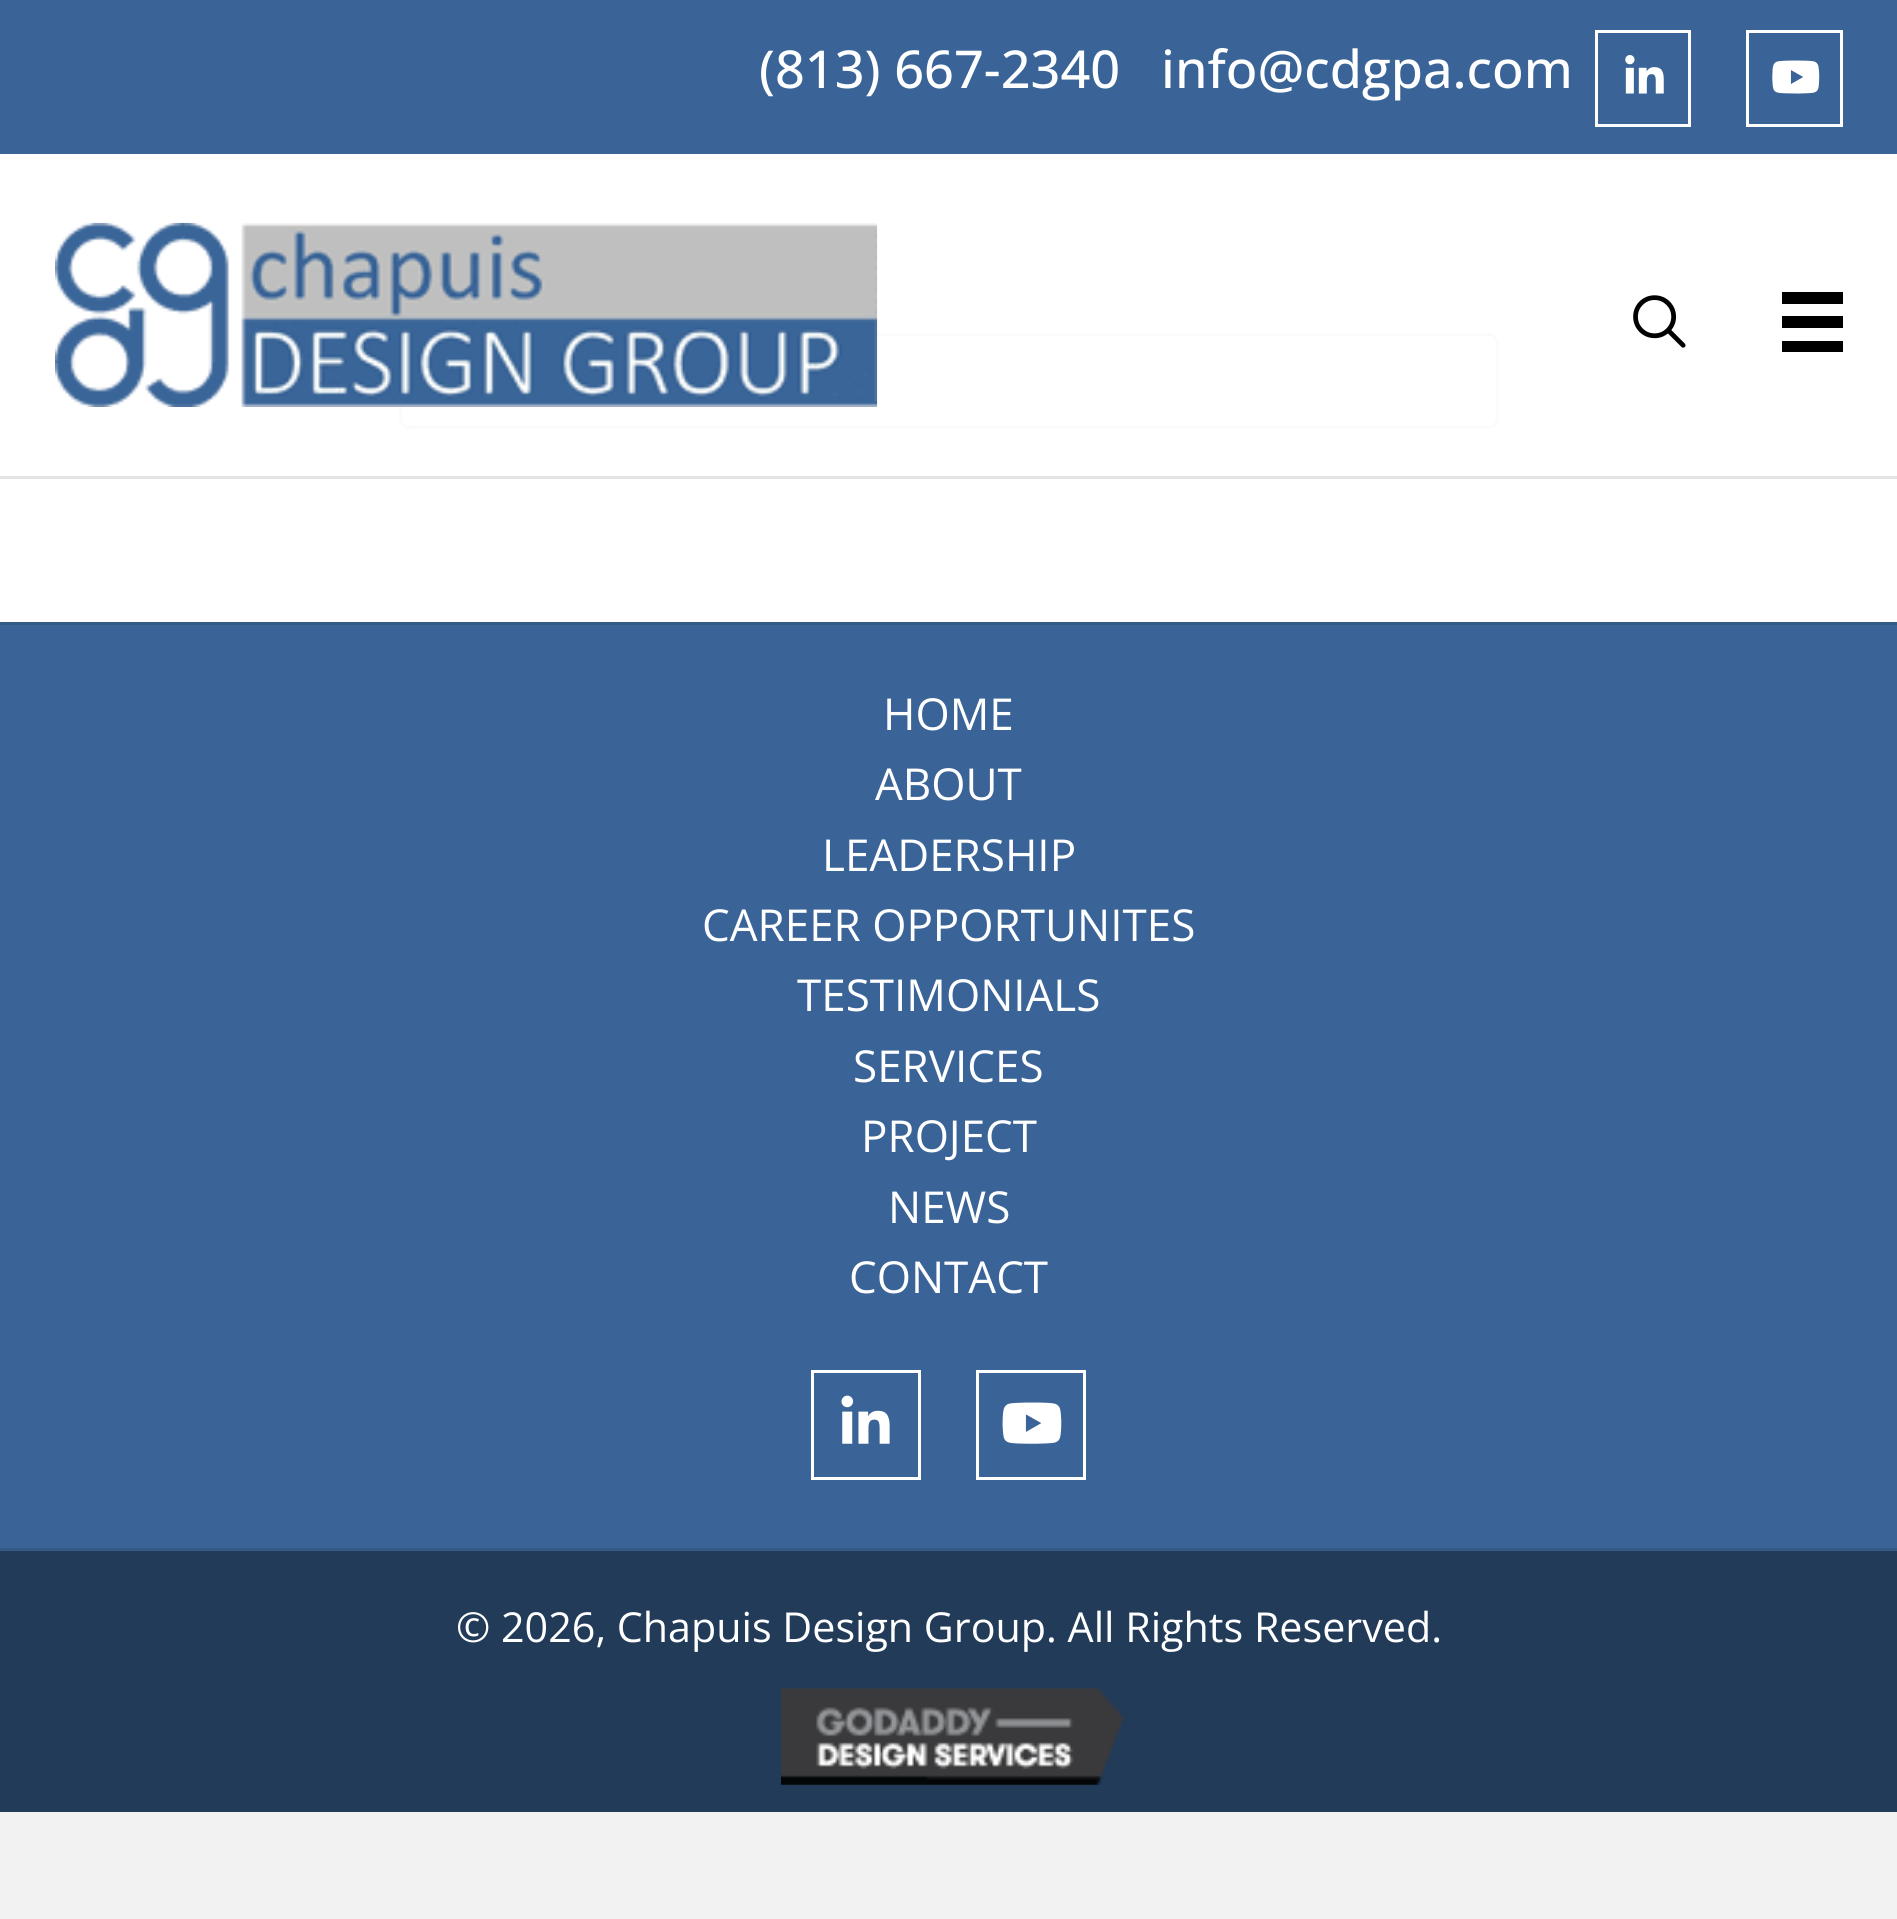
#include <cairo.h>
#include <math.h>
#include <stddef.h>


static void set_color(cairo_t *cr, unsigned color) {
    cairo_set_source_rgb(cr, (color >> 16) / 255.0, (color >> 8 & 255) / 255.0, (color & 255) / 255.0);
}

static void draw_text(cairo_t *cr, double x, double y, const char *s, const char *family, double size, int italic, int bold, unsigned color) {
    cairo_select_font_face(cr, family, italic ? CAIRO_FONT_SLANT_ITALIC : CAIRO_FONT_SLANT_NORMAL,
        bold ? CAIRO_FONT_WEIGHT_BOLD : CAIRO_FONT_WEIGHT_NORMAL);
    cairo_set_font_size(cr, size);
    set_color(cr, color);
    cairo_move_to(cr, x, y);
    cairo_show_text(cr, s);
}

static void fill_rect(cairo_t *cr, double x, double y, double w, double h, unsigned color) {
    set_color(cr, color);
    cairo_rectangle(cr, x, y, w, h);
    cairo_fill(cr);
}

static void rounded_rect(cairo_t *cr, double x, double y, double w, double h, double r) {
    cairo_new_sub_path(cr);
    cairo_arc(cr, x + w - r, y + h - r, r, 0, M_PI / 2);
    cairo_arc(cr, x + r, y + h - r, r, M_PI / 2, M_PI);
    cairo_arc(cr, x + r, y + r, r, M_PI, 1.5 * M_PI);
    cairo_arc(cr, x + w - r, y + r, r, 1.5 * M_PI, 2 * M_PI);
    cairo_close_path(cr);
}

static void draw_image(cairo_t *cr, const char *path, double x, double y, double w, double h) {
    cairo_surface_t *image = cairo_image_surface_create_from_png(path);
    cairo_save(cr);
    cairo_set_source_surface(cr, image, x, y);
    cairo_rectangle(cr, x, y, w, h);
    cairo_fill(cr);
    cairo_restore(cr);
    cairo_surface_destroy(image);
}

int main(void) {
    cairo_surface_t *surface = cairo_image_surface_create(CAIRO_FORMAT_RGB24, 1897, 1919);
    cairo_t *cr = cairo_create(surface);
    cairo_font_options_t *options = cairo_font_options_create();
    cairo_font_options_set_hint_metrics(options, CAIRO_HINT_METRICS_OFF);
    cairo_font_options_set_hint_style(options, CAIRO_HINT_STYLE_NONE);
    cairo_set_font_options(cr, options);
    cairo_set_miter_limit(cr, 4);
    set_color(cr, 0xF2F2F2);
    cairo_paint(cr);
    fill_rect(cr, 0, 0, 1897, 154, 0x3A6497);
    draw_text(cr, 759, 88, "(813) 667-2340", "Open Sans Medium", 52.25, 0, 0, 0xFFFFFF);
    draw_text(cr, 1161, 88, "info@cdgpa.com", "Open Sans Medium", 52.25, 0, 0, 0xFFFFFF);
    cairo_rectangle(cr, 1596.5, 31.5, 93, 94);
    cairo_set_line_width(cr, 3);
    cairo_stroke(cr);
    draw_image(cr, "assets/img1.png", 1625, 55, 39, 39);
    cairo_rectangle(cr, 1747.5, 31.5, 94, 94);
    cairo_stroke(cr);
    draw_image(cr, "assets/img2.png", 1772, 60, 48, 34);
    fill_rect(cr, 0, 154, 1897, 468, 0xFFFFFF);
    set_color(cr, 0xFCFCFC);
    rounded_rect(cr, 400.5, 334.5, 1097, 93, 9.5);
    cairo_fill_preserve(cr);
    set_color(cr, 0xE6E6E6);
    cairo_stroke(cr);
    cairo_set_source_rgba(cr, 1, 1, 1, 0.85);
    cairo_rectangle(cr, 399, 333, 1100, 96);
    cairo_fill(cr);
    fill_rect(cr, 0, 476, 1897, 3, 0xE3E3E3);
    draw_image(cr, "assets/img3.png", 55, 222, 823, 185);
    draw_image(cr, "assets/img4.png", 1633, 295, 53, 53);
    fill_rect(cr, 1782, 292, 61, 12, 0x000000);
    fill_rect(cr, 1782, 316, 61, 12, 0x000000);
    fill_rect(cr, 1782, 341, 61, 11, 0x000000);
    fill_rect(cr, 0, 625, 1897, 923, 0x3A6497);
    fill_rect(cr, 0, 622, 1897, 3, 0x345A88);
    fill_rect(cr, 0, 1548, 1897, 3, 0x345A88);
    draw_text(cr, 883, 730, "HOME", "Open Sans", 44, 0, 0, 0xFFFFFF);
    draw_text(cr, 875, 800, "ABOUT", "Open Sans", 44, 0, 0, 0xFFFFFF);
    draw_text(cr, 822, 871, "LEADERSHIP", "Open Sans", 44, 0, 0, 0xFFFFFF);
    draw_text(cr, 702, 941, "CAREER OPPORTUNITES", "Open Sans", 44, 0, 0, 0xFFFFFF);
    draw_text(cr, 797, 1011, "TESTIMONIALS", "Open Sans", 44, 0, 0, 0xFFFFFF);
    draw_text(cr, 853, 1082, "SERVICES", "Open Sans", 44, 0, 0, 0xFFFFFF);
    draw_text(cr, 861, 1152, "PROJECT", "Open Sans", 44, 0, 0, 0xFFFFFF);
    draw_text(cr, 888, 1223, "NEWS", "Open Sans", 44, 0, 0, 0xFFFFFF);
    draw_text(cr, 849, 1293, "CONTACT", "Open Sans", 44, 0, 0, 0xFFFFFF);
    cairo_rectangle(cr, 812.5, 1371.5, 107, 107);
    cairo_stroke(cr);
    draw_image(cr, "assets/img5.png", 841, 1395, 49, 49);
    cairo_rectangle(cr, 977.5, 1371.5, 107, 107);
    cairo_stroke(cr);
    draw_image(cr, "assets/img6.png", 1002, 1402, 60, 42);
    fill_rect(cr, 0, 1551, 1897, 261, 0x223B59);
    draw_text(cr, 456, 1642, "© 2026, Chapuis Design Group. All Rights Reserved.", "Open Sans", 41.25, 0, 0, 0xFFFFFF);
    draw_image(cr, "assets/img7.png", 781, 1688, 344, 97);
    cairo_surface_write_to_png(surface, "output.png");
    cairo_font_options_destroy(options);
    cairo_destroy(cr);
    cairo_surface_destroy(surface);
    return 0;
}
